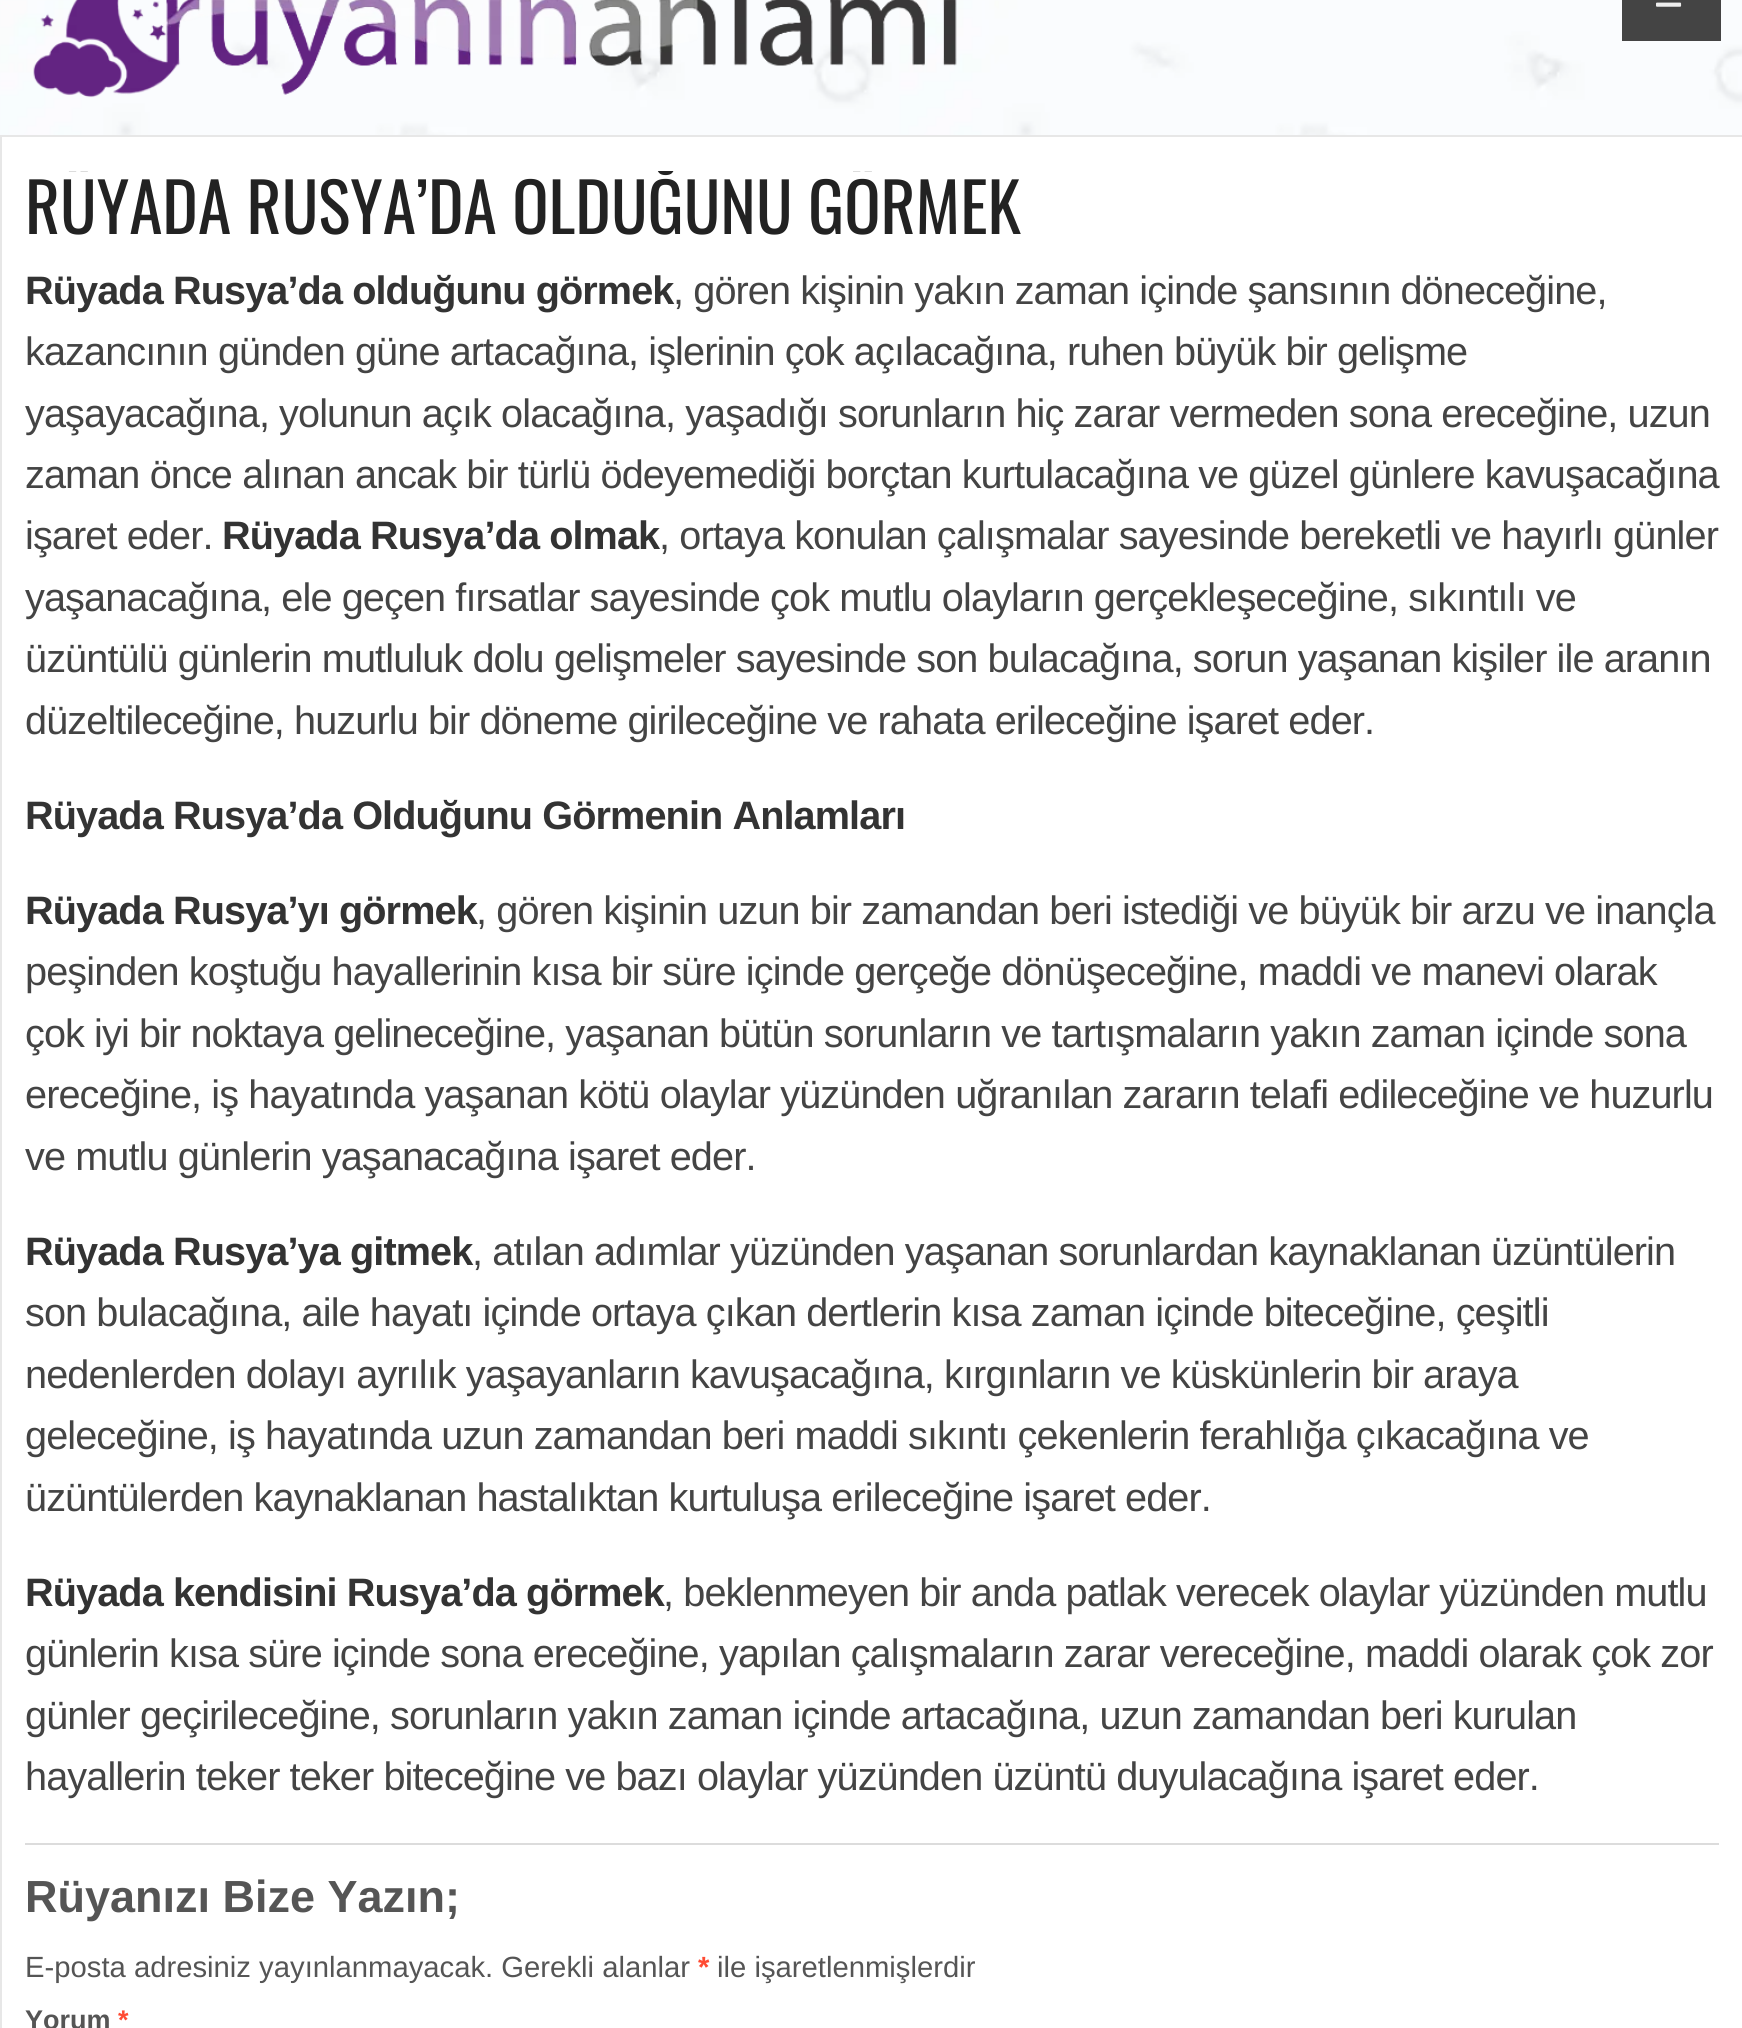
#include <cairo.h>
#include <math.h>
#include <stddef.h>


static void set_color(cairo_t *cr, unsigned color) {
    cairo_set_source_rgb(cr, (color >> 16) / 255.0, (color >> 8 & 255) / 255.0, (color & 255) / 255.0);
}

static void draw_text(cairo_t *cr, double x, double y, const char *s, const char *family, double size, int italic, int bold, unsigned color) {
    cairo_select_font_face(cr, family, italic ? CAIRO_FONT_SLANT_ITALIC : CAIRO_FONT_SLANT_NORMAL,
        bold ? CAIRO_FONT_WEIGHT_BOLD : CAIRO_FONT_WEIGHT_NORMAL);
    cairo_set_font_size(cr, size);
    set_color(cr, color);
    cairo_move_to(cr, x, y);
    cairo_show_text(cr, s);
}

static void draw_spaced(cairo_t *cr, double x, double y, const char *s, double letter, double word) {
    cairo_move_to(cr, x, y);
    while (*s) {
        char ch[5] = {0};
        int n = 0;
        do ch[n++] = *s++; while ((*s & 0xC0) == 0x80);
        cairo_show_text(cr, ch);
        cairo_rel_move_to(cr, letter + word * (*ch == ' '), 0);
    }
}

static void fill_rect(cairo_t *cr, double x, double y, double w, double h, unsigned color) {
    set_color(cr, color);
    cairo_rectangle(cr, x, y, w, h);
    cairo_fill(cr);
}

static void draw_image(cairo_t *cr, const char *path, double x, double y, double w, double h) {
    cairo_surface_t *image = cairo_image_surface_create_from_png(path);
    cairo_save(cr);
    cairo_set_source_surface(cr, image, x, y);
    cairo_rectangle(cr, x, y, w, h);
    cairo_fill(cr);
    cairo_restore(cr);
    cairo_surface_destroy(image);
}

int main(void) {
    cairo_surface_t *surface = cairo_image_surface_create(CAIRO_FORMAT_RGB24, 1742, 2028);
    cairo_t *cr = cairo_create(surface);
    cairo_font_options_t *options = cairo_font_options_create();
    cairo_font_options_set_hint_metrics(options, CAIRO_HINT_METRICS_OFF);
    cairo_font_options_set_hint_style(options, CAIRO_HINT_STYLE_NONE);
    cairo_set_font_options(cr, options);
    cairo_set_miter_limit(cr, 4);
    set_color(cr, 0xFFFFFF);
    cairo_paint(cr);
    draw_image(cr, "assets/img1.png", 0, 0, 1742, 135);
    draw_image(cr, "assets/img2.png", 33, 0, 924, 98);
    fill_rect(cr, 1622, 0, 99, 41, 0x444444);
    draw_image(cr, "assets/img3.png", 1656, 2, 26, 5);
    cairo_rectangle(cr, 1, 136, 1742, 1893);
    set_color(cr, 0xE7E7E7);
    cairo_stroke(cr);
    cairo_save(cr);
    cairo_rectangle(cr, 25, 171, 1694, 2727);
    cairo_clip(cr);
    draw_text(cr, 25, 234, "RÜYADA RUSYA’DA OLDUĞUNU GÖRMEK", "Oswald", 67.5, 0, 0, 0x222222);
    cairo_restore(cr);
    fill_rect(cr, 25, 1843, 1694, 2, 0xDCDCDC);
    cairo_select_font_face(cr, "Liberation Sans", CAIRO_FONT_SLANT_NORMAL, CAIRO_FONT_WEIGHT_BOLD);
    cairo_set_font_size(cr, 39.65);
    set_color(cr, 0x333333);
    draw_spaced(cr, 25, 304, "Rüyada Rusya’da olduğunu görmek", -0.9, 0);
    cairo_select_font_face(cr, "Liberation Sans", CAIRO_FONT_SLANT_NORMAL, CAIRO_FONT_WEIGHT_NORMAL);
    set_color(cr, 0x444444);
    draw_spaced(cr, 673, 304, ", gören kişinin yakın zaman içinde şansının döneceğine,", -0.9, 0);
    draw_spaced(cr, 25, 365, "kazancının günden güne artacağına, işlerinin çok açılacağına, ruhen büyük bir gelişme", -0.9, 0);
    draw_spaced(cr, 25, 427, "yaşayacağına, yolunun açık olacağına, yaşadığı sorunların hiç zarar vermeden sona ereceğine, uzun", -0.9, 0);
    draw_spaced(cr, 25, 488, "zaman önce alınan ancak bir türlü ödeyemediği borçtan kurtulacağına ve güzel günlere kavuşacağına", -0.9, 0);
    draw_spaced(cr, 25, 549, "işaret eder.", -0.9, 0);
    cairo_select_font_face(cr, "Liberation Sans", CAIRO_FONT_SLANT_NORMAL, CAIRO_FONT_WEIGHT_BOLD);
    set_color(cr, 0x333333);
    draw_spaced(cr, 222, 549, "Rüyada Rusya’da olmak", -0.9, 0);
    cairo_select_font_face(cr, "Liberation Sans", CAIRO_FONT_SLANT_NORMAL, CAIRO_FONT_WEIGHT_NORMAL);
    set_color(cr, 0x444444);
    draw_spaced(cr, 659, 549, ", ortaya konulan çalışmalar sayesinde bereketli ve hayırlı günler", -0.9, 0);
    draw_spaced(cr, 25, 611, "yaşanacağına, ele geçen fırsatlar sayesinde çok mutlu olayların gerçekleşeceğine, sıkıntılı ve", -0.9, 0);
    draw_spaced(cr, 25, 672, "üzüntülü günlerin mutluluk dolu gelişmeler sayesinde son bulacağına, sorun yaşanan kişiler ile aranın", -0.9, 0);
    draw_spaced(cr, 25, 734, "düzeltileceğine, huzurlu bir döneme girileceğine ve rahata erileceğine işaret eder.", -0.9, 0);
    cairo_select_font_face(cr, "Liberation Sans", CAIRO_FONT_SLANT_NORMAL, CAIRO_FONT_WEIGHT_BOLD);
    set_color(cr, 0x333333);
    draw_spaced(cr, 25, 829, "Rüyada Rusya’da Olduğunu Görmenin Anlamları", -0.9, 0);
    draw_spaced(cr, 25, 924, "Rüyada Rusya’yı görmek", -0.9, 0);
    cairo_select_font_face(cr, "Liberation Sans", CAIRO_FONT_SLANT_NORMAL, CAIRO_FONT_WEIGHT_NORMAL);
    set_color(cr, 0x444444);
    draw_spaced(cr, 476, 924, ", gören kişinin uzun bir zamandan beri istediği ve büyük bir arzu ve inançla", -0.9, 0);
    draw_spaced(cr, 25, 985, "peşinden koştuğu hayallerinin kısa bir süre içinde gerçeğe dönüşeceğine, maddi ve manevi olarak", -0.9, 0);
    draw_spaced(cr, 25, 1047, "çok iyi bir noktaya gelineceğine, yaşanan bütün sorunların ve tartışmaların yakın zaman içinde sona", -0.9, 0);
    draw_spaced(cr, 25, 1108, "ereceğine, iş hayatında yaşanan kötü olaylar yüzünden uğranılan zararın telafi edileceğine ve huzurlu", -0.9, 0);
    draw_spaced(cr, 25, 1170, "ve mutlu günlerin yaşanacağına işaret eder.", -0.9, 0);
    cairo_select_font_face(cr, "Liberation Sans", CAIRO_FONT_SLANT_NORMAL, CAIRO_FONT_WEIGHT_BOLD);
    set_color(cr, 0x333333);
    draw_spaced(cr, 25, 1265, "Rüyada Rusya’ya gitmek", -0.9, 0);
    cairo_select_font_face(cr, "Liberation Sans", CAIRO_FONT_SLANT_NORMAL, CAIRO_FONT_WEIGHT_NORMAL);
    set_color(cr, 0x444444);
    draw_spaced(cr, 472, 1265, ", atılan adımlar yüzünden yaşanan sorunlardan kaynaklanan üzüntülerin", -0.9, 0);
    draw_spaced(cr, 25, 1326, "son bulacağına, aile hayatı içinde ortaya çıkan dertlerin kısa zaman içinde biteceğine, çeşitli", -0.9, 0);
    draw_spaced(cr, 25, 1388, "nedenlerden dolayı ayrılık yaşayanların kavuşacağına, kırgınların ve küskünlerin bir araya", -0.9, 0);
    draw_spaced(cr, 25, 1449, "geleceğine, iş hayatında uzun zamandan beri maddi sıkıntı çekenlerin ferahlığa çıkacağına ve", -0.9, 0);
    draw_spaced(cr, 25, 1511, "üzüntülerden kaynaklanan hastalıktan kurtuluşa erileceğine işaret eder.", -0.9, 0);
    cairo_select_font_face(cr, "Liberation Sans", CAIRO_FONT_SLANT_NORMAL, CAIRO_FONT_WEIGHT_BOLD);
    set_color(cr, 0x333333);
    draw_spaced(cr, 25, 1606, "Rüyada kendisini Rusya’da görmek", -0.9, 0);
    cairo_select_font_face(cr, "Liberation Sans", CAIRO_FONT_SLANT_NORMAL, CAIRO_FONT_WEIGHT_NORMAL);
    set_color(cr, 0x444444);
    draw_spaced(cr, 663, 1606, ", beklenmeyen bir anda patlak verecek olaylar yüzünden mutlu", -0.9, 0);
    draw_spaced(cr, 25, 1667, "günlerin kısa süre içinde sona ereceğine, yapılan çalışmaların zarar vereceğine, maddi olarak çok zor", -0.9, 0);
    draw_spaced(cr, 25, 1729, "günler geçirileceğine, sorunların yakın zaman içinde artacağına, uzun zamandan beri kurulan", -0.9, 0);
    draw_spaced(cr, 25, 1790, "hayallerin teker teker biteceğine ve bazı olaylar yüzünden üzüntü duyulacağına işaret eder.", -0.9, 0);
    draw_text(cr, 25, 1912, "Rüyanızı Bize Yazın;", "Liberation Sans", 45, 0, 1, 0x555555);
    draw_text(cr, 25, 1977, "E-posta adresiniz yayınlanmayacak. Gerekli alanlar", "Liberation Sans", 29.25, 0, 0, 0x555555);
    draw_text(cr, 698, 1977, "*", "Liberation Sans", 29.25, 0, 1, 0xFF4B33);
    draw_text(cr, 717, 1977, "ile işaretlenmişlerdir", "Liberation Sans", 29.25, 0, 0, 0x555555);
    draw_text(cr, 25, 2029, "Yorum", "Liberation Sans", 27, 0, 1, 0x555555);
    draw_text(cr, 118, 2029, "*", "Liberation Sans", 27, 0, 1, 0xFF4B33);
    cairo_surface_write_to_png(surface, "output.png");
    cairo_font_options_destroy(options);
    cairo_destroy(cr);
    cairo_surface_destroy(surface);
    return 0;
}
